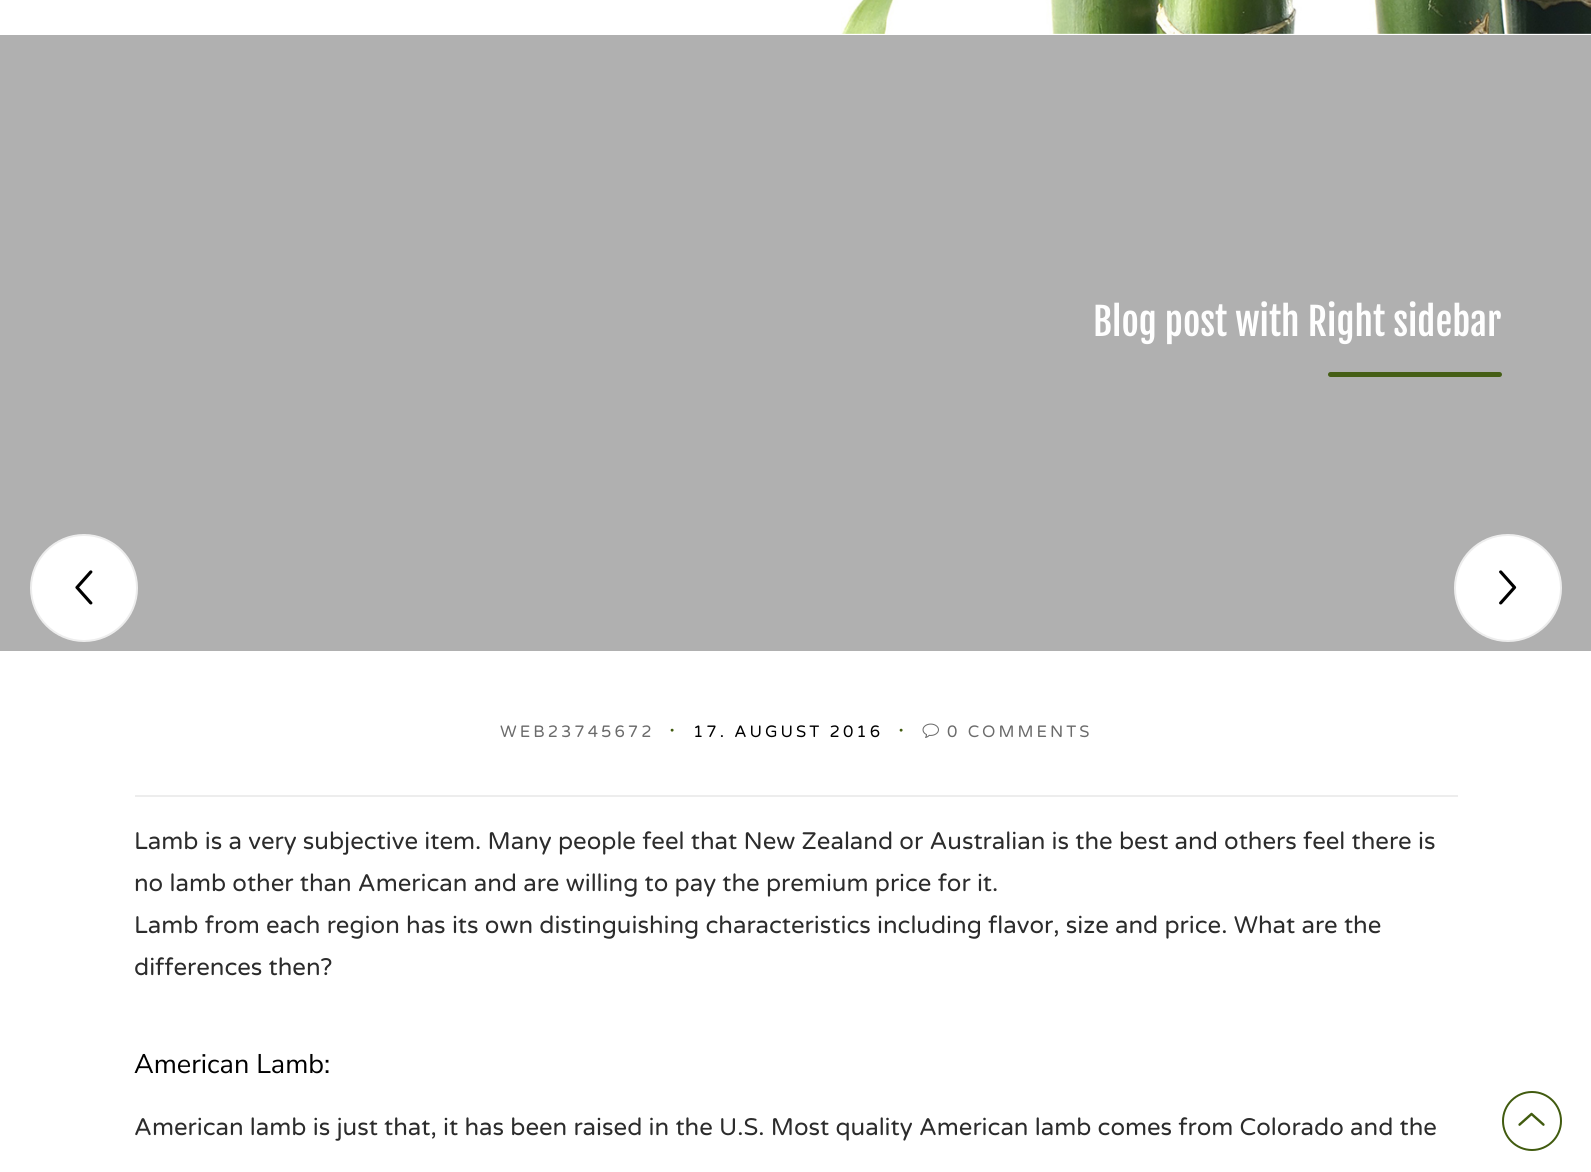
#include <cairo.h>
#include <math.h>
#include <stddef.h>


static void set_color(cairo_t *cr, unsigned color) {
    cairo_set_source_rgb(cr, (color >> 16) / 255.0, (color >> 8 & 255) / 255.0, (color & 255) / 255.0);
}

static void draw_text(cairo_t *cr, double x, double y, const char *s, const char *family, double size, int italic, int bold, unsigned color) {
    cairo_select_font_face(cr, family, italic ? CAIRO_FONT_SLANT_ITALIC : CAIRO_FONT_SLANT_NORMAL,
        bold ? CAIRO_FONT_WEIGHT_BOLD : CAIRO_FONT_WEIGHT_NORMAL);
    cairo_set_font_size(cr, size);
    set_color(cr, color);
    cairo_move_to(cr, x, y);
    cairo_show_text(cr, s);
}

static void draw_spaced(cairo_t *cr, double x, double y, const char *s, double letter, double word) {
    cairo_move_to(cr, x, y);
    while (*s) {
        char ch[5] = {0};
        int n = 0;
        do ch[n++] = *s++; while ((*s & 0xC0) == 0x80);
        cairo_show_text(cr, ch);
        cairo_rel_move_to(cr, letter + word * (*ch == ' '), 0);
    }
}

static void fill_rect(cairo_t *cr, double x, double y, double w, double h, unsigned color) {
    set_color(cr, color);
    cairo_rectangle(cr, x, y, w, h);
    cairo_fill(cr);
}

static void rounded_rect(cairo_t *cr, double x, double y, double w, double h, double r) {
    cairo_new_sub_path(cr);
    cairo_arc(cr, x + w - r, y + h - r, r, 0, M_PI / 2);
    cairo_arc(cr, x + r, y + h - r, r, M_PI / 2, M_PI);
    cairo_arc(cr, x + r, y + r, r, M_PI, 1.5 * M_PI);
    cairo_arc(cr, x + w - r, y + r, r, 1.5 * M_PI, 2 * M_PI);
    cairo_close_path(cr);
}

static void draw_image(cairo_t *cr, const char *path, double x, double y, double w, double h) {
    cairo_surface_t *image = cairo_image_surface_create_from_png(path);
    cairo_save(cr);
    cairo_set_source_surface(cr, image, x, y);
    cairo_rectangle(cr, x, y, w, h);
    cairo_fill(cr);
    cairo_restore(cr);
    cairo_surface_destroy(image);
}

int main(void) {
    cairo_surface_t *surface = cairo_image_surface_create(CAIRO_FORMAT_RGB24, 1591, 1172);
    cairo_t *cr = cairo_create(surface);
    cairo_font_options_t *options = cairo_font_options_create();
    cairo_font_options_set_hint_metrics(options, CAIRO_HINT_METRICS_OFF);
    cairo_font_options_set_hint_style(options, CAIRO_HINT_STYLE_NONE);
    cairo_set_font_options(cr, options);
    cairo_set_miter_limit(cr, 4);
    set_color(cr, 0xFFFFFF);
    cairo_paint(cr);
    draw_image(cr, "assets/img1.png", 841, 0, 750, 34);
    fill_rect(cr, 0, 35, 1591, 616, 0xB0B0B0);
    draw_text(cr, 1093, 336, "Blog post with Right sidebar", "Fjalla One", 37.5, 0, 0, 0xFEFEFE);
    set_color(cr, 0x455E15);
    rounded_rect(cr, 1328, 372, 174, 5, 2.5);
    cairo_fill(cr);
    fill_rect(cr, 135, 795, 1323, 2, 0xEDEDED);
    cairo_select_font_face(cr, "Varela Round", CAIRO_FONT_SLANT_NORMAL, CAIRO_FONT_WEIGHT_NORMAL);
    cairo_set_font_size(cr, 16.5);
    set_color(cr, 0x6B6B6B);
    draw_spaced(cr, 500, 737, "WEB23745672", 3, 0);
    cairo_set_font_size(cr, 24);
    set_color(cr, 0x415B0F);
    draw_spaced(cr, 669, 737, "·", 3, 0);
    cairo_set_font_size(cr, 16.5);
    set_color(cr, 0x000000);
    draw_spaced(cr, 693, 737, "17. AUGUST 2016", 3, 0);
    cairo_set_font_size(cr, 24);
    set_color(cr, 0x415B0F);
    draw_spaced(cr, 898, 737, "·", 3, 0);
    draw_image(cr, "assets/img2.png", 922, 723, 17, 15);
    cairo_set_font_size(cr, 16.5);
    set_color(cr, 0x6B6B6B);
    draw_spaced(cr, 947, 737, "0 COMMENTS", 3, 0);
    draw_text(cr, 134, 849, "Lamb is a very subjective item. Many people feel that New Zealand or Australian is the best and others feel there is", "Varela Round", 24, 0, 0, 0x2C2C2C);
    draw_text(cr, 134, 891, "no lamb other than American and are willing to pay the premium price for it.", "Varela Round", 24, 0, 0, 0x2C2C2C);
    draw_text(cr, 134, 933, "Lamb from each region has its own distinguishing characteristics including flavor, size and price. What are the", "Varela Round", 24, 0, 0, 0x2C2C2C);
    draw_text(cr, 134, 975, "differences then?", "Varela Round", 24, 0, 0, 0x2C2C2C);
    draw_text(cr, 134, 1073, "American Lamb:", "Nunito Sans", 27, 0, 0, 0x000000);
    draw_text(cr, 134, 1135, "American lamb is just that, it has been raised in the U.S. Most quality American lamb comes from Colorado and the", "Varela Round", 24, 0, 0, 0x2C2C2C);
    set_color(cr, 0xFFFFFF);
    cairo_new_path(cr);
    cairo_arc(cr, 84, 588, 53, 0, 2 * M_PI);
    cairo_fill_preserve(cr);
    set_color(cr, 0xEDEDED);
    cairo_stroke(cr);
    draw_image(cr, "assets/img3.png", 75, 570, 18, 35);
    set_color(cr, 0xFFFFFF);
    cairo_arc(cr, 1508, 588, 53, 0, 2 * M_PI);
    cairo_fill_preserve(cr);
    set_color(cr, 0xEDEDED);
    cairo_stroke(cr);
    draw_image(cr, "assets/img4.png", 1499, 570, 18, 35);
    cairo_arc(cr, 1532, 1121, 29, 0, 2 * M_PI);
    set_color(cr, 0x415B0F);
    cairo_stroke(cr);
    draw_image(cr, "assets/img5.png", 1518, 1112, 27, 14);
    cairo_surface_write_to_png(surface, "output.png");
    cairo_font_options_destroy(options);
    cairo_destroy(cr);
    cairo_surface_destroy(surface);
    return 0;
}
